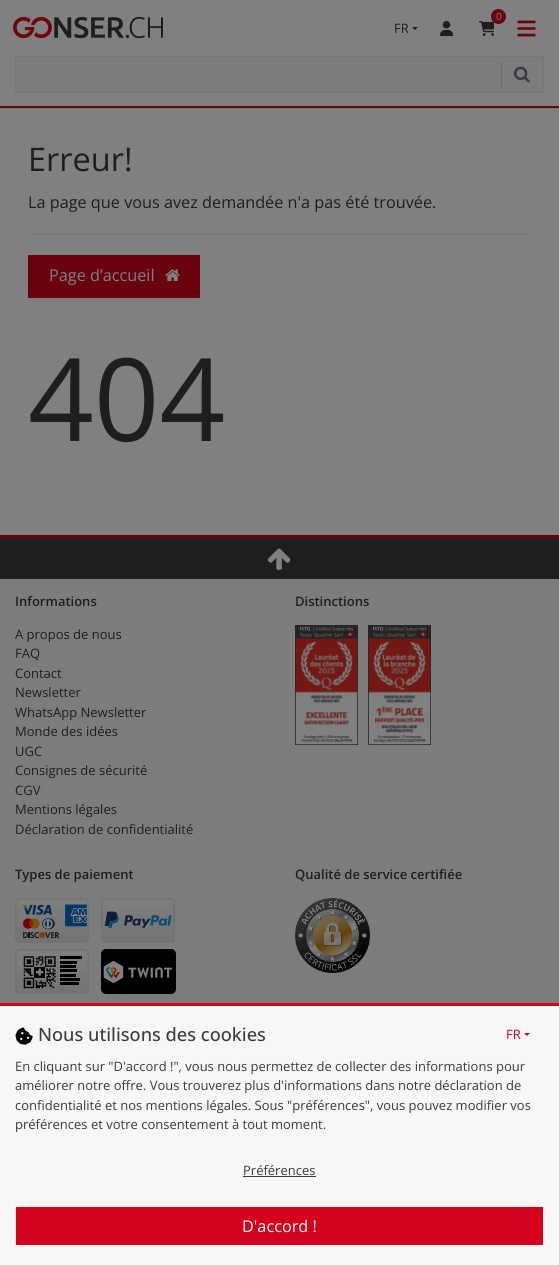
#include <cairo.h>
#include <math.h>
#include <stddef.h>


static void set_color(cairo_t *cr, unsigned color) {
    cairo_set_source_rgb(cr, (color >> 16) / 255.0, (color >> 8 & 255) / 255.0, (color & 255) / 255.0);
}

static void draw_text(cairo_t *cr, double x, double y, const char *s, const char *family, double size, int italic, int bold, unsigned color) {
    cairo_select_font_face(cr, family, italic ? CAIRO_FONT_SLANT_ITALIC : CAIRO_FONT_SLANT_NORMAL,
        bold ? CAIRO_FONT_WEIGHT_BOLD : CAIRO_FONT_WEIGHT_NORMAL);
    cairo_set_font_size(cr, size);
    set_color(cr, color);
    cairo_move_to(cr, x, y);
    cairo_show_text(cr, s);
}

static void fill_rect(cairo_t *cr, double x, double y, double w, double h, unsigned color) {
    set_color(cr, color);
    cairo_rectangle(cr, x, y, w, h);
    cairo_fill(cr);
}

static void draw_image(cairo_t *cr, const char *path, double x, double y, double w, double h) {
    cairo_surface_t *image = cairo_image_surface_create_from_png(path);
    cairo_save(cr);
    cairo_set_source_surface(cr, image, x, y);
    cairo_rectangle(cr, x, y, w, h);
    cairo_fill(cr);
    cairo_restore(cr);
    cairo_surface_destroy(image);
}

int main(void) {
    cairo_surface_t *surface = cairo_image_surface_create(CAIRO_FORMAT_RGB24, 559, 1265);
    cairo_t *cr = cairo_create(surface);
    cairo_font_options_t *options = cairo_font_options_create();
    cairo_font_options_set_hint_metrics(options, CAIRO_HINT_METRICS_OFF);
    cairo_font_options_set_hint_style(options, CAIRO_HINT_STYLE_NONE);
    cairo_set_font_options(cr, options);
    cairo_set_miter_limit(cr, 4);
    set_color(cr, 0x808080);
    cairo_paint(cr);
    draw_image(cr, "assets/img1.png", 13, 16, 150, 23);
    draw_text(cr, 394, 33, "FR", "Open Sans", 13, 0, 0, 0x1E1E1E);
    cairo_new_path(cr);
    cairo_move_to(cr, 412, 27);
    cairo_line_to(cr, 418, 27);
    cairo_line_to(cr, 415, 30);
    cairo_close_path(cr);
    cairo_fill(cr);
    draw_image(cr, "assets/img2.png", 440, 21, 13, 15);
    draw_image(cr, "assets/img3.png", 479, 21, 15, 15);
    set_color(cr, 0x6A010F);
    cairo_arc(cr, 498.5, 16.5, 6.5, 0, 2 * M_PI);
    cairo_fill_preserve(cr);
    cairo_stroke(cr);
    draw_text(cr, 496, 20, "0", "Open Sans", 10, 0, 0, 0x808080);
    draw_image(cr, "assets/img4.png", 517, 20, 19, 17);
    fill_rect(cr, 0, 108, 559, 1, 0x777777);
    fill_rect(cr, 16, 57, 527, 35, 0x7C7C7D);
    fill_rect(cr, 15, 56, 529, 1, 0x777777);
    fill_rect(cr, 15, 92, 486, 1, 0x777777);
    fill_rect(cr, 15, 56, 1, 37, 0x777777);
    fill_rect(cr, 543, 56, 1, 37, 0x777777);
    fill_rect(cr, 501, 92, 43, 1, 0x777777);
    fill_rect(cr, 501, 62, 1, 25, 0x676A6D);
    draw_image(cr, "assets/img5.png", 514, 66, 16, 17);
    fill_rect(cr, 0, 106, 559, 2, 0x6A010F);
    draw_text(cr, 28, 171, "Erreur!", "Open Sans", 32.5, 0, 0, 0x1E1E1E);
    draw_text(cr, 28, 208, "La page que vous avez demandée n'a pas été trouvée.", "Open Sans", 16.25, 0, 0, 0x1E1E1E);
    fill_rect(cr, 28, 234, 503, 1, 0x777777);
    fill_rect(cr, 28, 255, 172, 43, 0x6A010F);
    draw_text(cr, 49, 281, "Page d’accueil", "Open Sans", 16.25, 0, 0, 0x808080);
    draw_image(cr, "assets/img6.png", 165, 269, 15, 12);
    draw_text(cr, 28, 441, "404", "Open Sans", 115, 0, 0, 0x1E1E1E);
    fill_rect(cr, 0, 579, 559, 424, 0x7C7C7D);
    fill_rect(cr, 0, 535, 559, 3, 0x6A010F);
    fill_rect(cr, 0, 538, 559, 41, 0x1E1E1E);
    draw_image(cr, "assets/img7.png", 267, 548, 24, 22);
    draw_text(cr, 15, 606, "Informations", "Open Sans SemiBold", 13, 0, 0, 0x1E1E1E);
    draw_text(cr, 15, 639, "A propos de nous", "Open Sans", 13, 0, 0, 0x1E1E1E);
    draw_text(cr, 15, 658, "FAQ", "Open Sans", 13, 0, 0, 0x1E1E1E);
    draw_text(cr, 15, 678, "Contact", "Open Sans", 13, 0, 0, 0x1E1E1E);
    draw_text(cr, 15, 697, "Newsletter", "Open Sans", 13, 0, 0, 0x1E1E1E);
    draw_text(cr, 15, 717, "WhatsApp Newsletter", "Open Sans", 13, 0, 0, 0x1E1E1E);
    draw_text(cr, 15, 736, "Monde des idées", "Open Sans", 13, 0, 0, 0x1E1E1E);
    draw_text(cr, 15, 756, "UGC", "Open Sans", 13, 0, 0, 0x1E1E1E);
    draw_text(cr, 15, 775, "Consignes de sécurité", "Open Sans", 13, 0, 0, 0x1E1E1E);
    draw_text(cr, 15, 795, "CGV", "Open Sans", 13, 0, 0, 0x1E1E1E);
    draw_text(cr, 15, 814, "Mentions légales", "Open Sans", 13, 0, 0, 0x1E1E1E);
    draw_text(cr, 15, 834, "Déclaration de confidentialité", "Open Sans", 13, 0, 0, 0x1E1E1E);
    draw_text(cr, 295, 606, "Distinctions", "Open Sans SemiBold", 13, 0, 0, 0x1E1E1E);
    draw_image(cr, "assets/img8.png", 295, 625, 63, 120);
    draw_image(cr, "assets/img9.png", 368, 625, 63, 120);
    draw_text(cr, 15, 879, "Types de paiement", "Open Sans SemiBold", 13, 0, 0, 0x1E1E1E);
    draw_image(cr, "assets/img10.png", 15, 898, 74, 45);
    draw_image(cr, "assets/img11.png", 101, 898, 74, 45);
    draw_image(cr, "assets/img12.png", 15, 949, 74, 45);
    draw_image(cr, "assets/img13.png", 101, 949, 75, 45);
    draw_text(cr, 295, 879, "Qualité de service certifiée", "Open Sans SemiBold", 13, 0, 0, 0x1E1E1E);
    draw_image(cr, "assets/img14.png", 295, 898, 75, 75);
    fill_rect(cr, 0, 1006, 559, 259, 0xF7F7F9);
    fill_rect(cr, 0, 1003, 559, 3, 0xD4021D);
    draw_image(cr, "assets/img15.png", 15, 1027, 18, 18);
    draw_text(cr, 38, 1041, "Nous utilisons des cookies", "Open Sans Medium", 18.25, 0, 0, 0x3C3C3C);
    draw_text(cr, 506, 1039, "FR", "Open Sans", 13, 0, 0, 0xD4021D);
    cairo_new_path(cr);
    cairo_move_to(cr, 524, 1033);
    cairo_line_to(cr, 530, 1033);
    cairo_line_to(cr, 527, 1036);
    cairo_close_path(cr);
    cairo_fill(cr);
    draw_text(cr, 15, 1071, "En cliquant sur \"D'accord !\", vous nous permettez de collecter des informations pour", "Open Sans", 13, 0, 0, 0x3C3C3C);
    draw_text(cr, 15, 1090, "améliorer notre offre. Vous trouverez plus d'informations dans notre déclaration de", "Open Sans", 13, 0, 0, 0x3C3C3C);
    draw_text(cr, 15, 1110, "confidentialité et nos mentions légales. Sous \"préférences\", vous pouvez modifier vos", "Open Sans", 13, 0, 0, 0x3C3C3C);
    draw_text(cr, 15, 1129, "préférences et votre consentement à tout moment.", "Open Sans", 13, 0, 0, 0x3C3C3C);
    draw_text(cr, 243, 1175, "Préférences", "Open Sans", 13, 0, 0, 0x3C3C3C);
    fill_rect(cr, 243, 1176, 73, 1, 0x3C3C3C);
    set_color(cr, 0xD4021D);
    cairo_rectangle(cr, 15.5, 1206.5, 528, 39);
    cairo_fill_preserve(cr);
    set_color(cr, 0xEEEEEE);
    cairo_set_line_width(cr, 1);
    cairo_stroke(cr);
    draw_text(cr, 242, 1232, "D'accord !", "Open Sans", 16.25, 0, 0, 0xFFFFFF);
    cairo_surface_write_to_png(surface, "output.png");
    cairo_font_options_destroy(options);
    cairo_destroy(cr);
    cairo_surface_destroy(surface);
    return 0;
}
